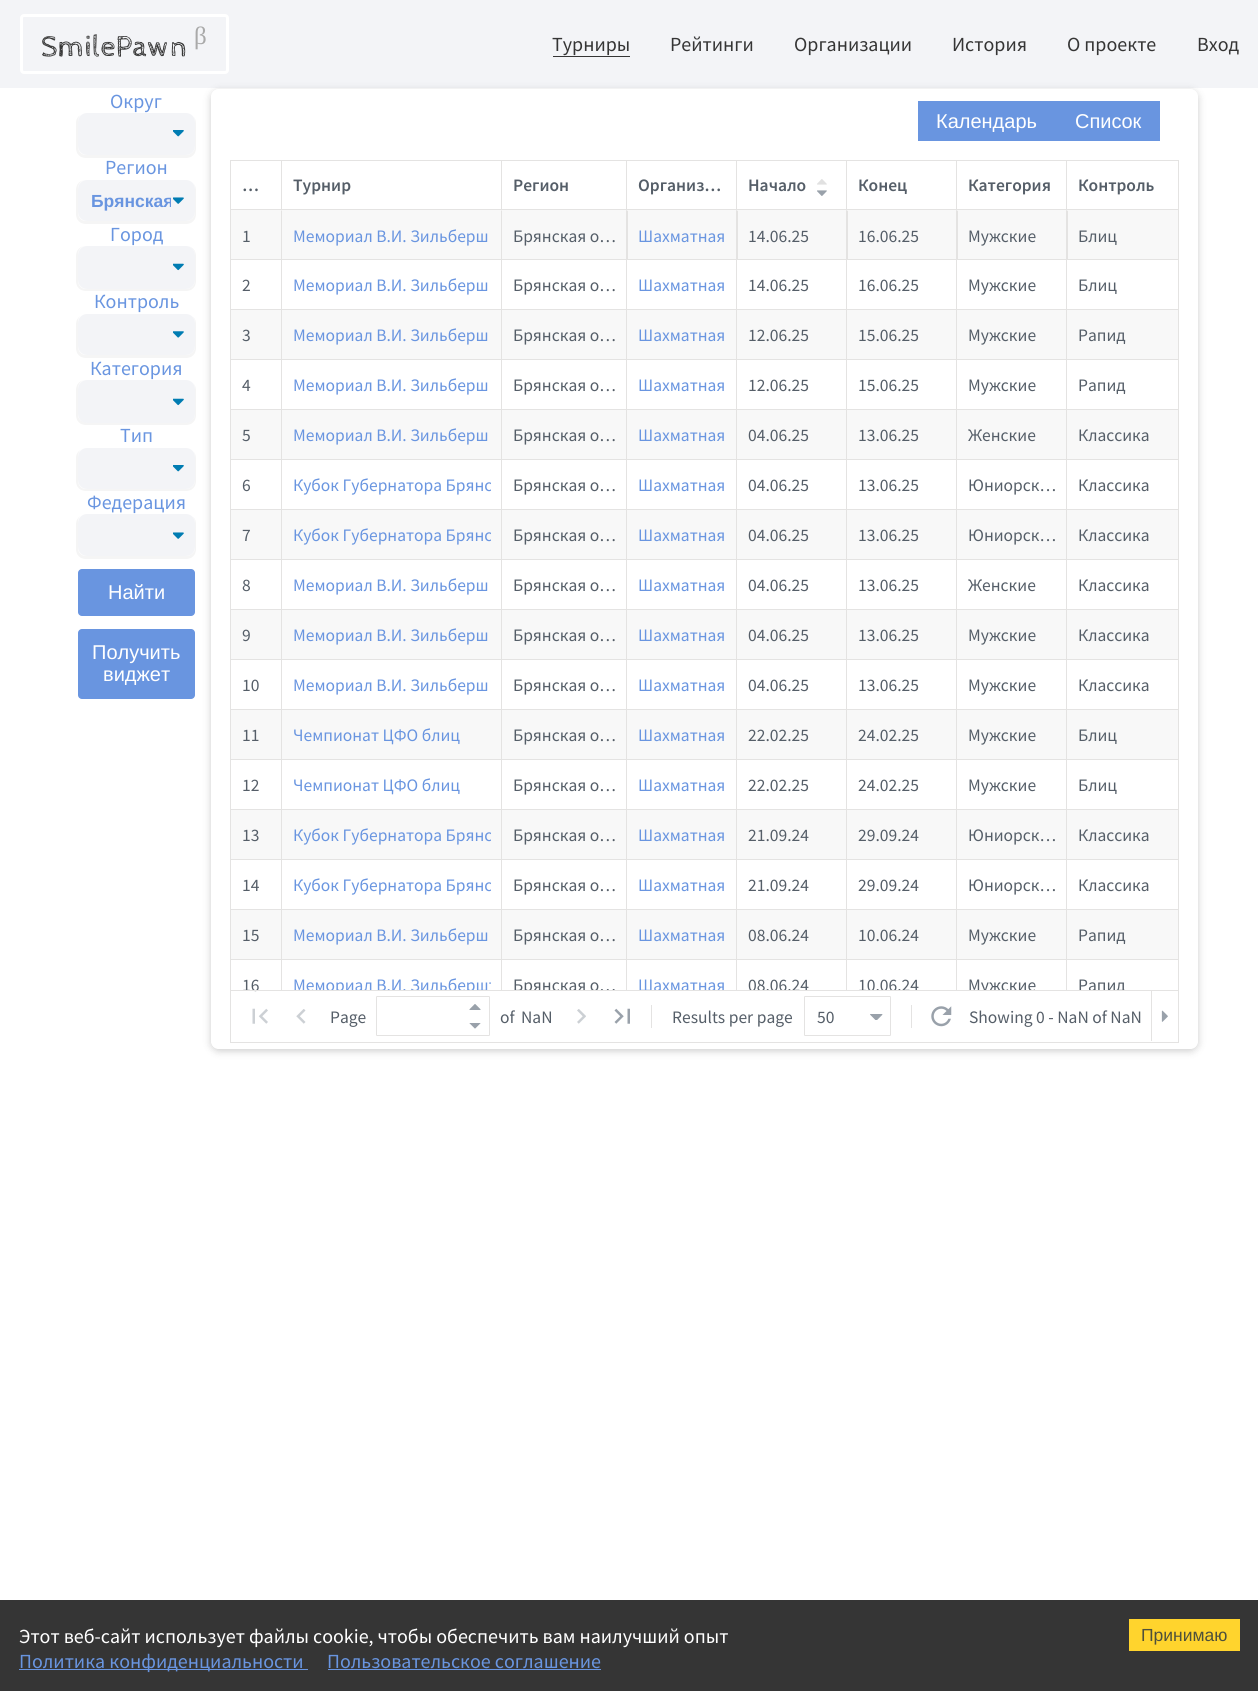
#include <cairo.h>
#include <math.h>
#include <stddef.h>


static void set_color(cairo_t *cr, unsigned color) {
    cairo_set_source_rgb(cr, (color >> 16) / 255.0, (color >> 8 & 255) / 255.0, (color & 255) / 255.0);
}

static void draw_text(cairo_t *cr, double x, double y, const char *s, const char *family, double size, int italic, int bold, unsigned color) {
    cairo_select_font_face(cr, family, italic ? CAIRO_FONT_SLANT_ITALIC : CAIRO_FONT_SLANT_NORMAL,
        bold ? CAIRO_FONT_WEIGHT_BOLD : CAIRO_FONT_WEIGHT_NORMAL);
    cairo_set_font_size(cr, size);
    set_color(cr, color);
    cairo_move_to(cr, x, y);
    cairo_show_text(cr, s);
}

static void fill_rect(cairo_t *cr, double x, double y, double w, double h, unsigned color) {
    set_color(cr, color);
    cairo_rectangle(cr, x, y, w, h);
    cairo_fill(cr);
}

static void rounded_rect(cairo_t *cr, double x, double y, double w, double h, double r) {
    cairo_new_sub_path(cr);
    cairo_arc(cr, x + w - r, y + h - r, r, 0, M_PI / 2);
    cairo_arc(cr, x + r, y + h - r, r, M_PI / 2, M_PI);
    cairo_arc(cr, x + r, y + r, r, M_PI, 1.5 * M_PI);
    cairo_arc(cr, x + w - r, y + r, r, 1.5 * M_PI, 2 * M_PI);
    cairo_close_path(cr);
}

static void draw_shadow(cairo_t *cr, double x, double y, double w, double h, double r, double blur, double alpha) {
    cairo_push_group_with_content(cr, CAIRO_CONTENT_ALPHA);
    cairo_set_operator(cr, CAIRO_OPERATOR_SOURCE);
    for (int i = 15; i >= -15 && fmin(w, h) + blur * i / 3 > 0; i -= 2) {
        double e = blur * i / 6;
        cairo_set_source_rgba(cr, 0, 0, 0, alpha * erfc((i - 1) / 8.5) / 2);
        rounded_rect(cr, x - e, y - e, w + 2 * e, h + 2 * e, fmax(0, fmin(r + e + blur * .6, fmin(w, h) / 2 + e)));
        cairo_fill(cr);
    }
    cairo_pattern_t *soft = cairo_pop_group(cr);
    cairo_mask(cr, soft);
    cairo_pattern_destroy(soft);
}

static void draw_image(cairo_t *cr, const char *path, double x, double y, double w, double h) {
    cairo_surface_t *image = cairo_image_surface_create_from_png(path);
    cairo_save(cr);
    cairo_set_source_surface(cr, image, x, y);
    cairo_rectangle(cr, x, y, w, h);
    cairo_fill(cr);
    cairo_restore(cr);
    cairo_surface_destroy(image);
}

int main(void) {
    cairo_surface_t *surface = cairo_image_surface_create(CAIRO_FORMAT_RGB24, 1258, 1691);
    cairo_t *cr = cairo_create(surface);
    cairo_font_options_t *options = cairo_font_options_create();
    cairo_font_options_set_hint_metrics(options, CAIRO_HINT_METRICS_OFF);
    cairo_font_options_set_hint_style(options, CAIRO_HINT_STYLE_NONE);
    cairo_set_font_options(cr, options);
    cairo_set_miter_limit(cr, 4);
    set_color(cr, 0xFFFFFF);
    cairo_paint(cr);
    fill_rect(cr, 0, 0, 1258, 88, 0xF3F4F7);
    rounded_rect(cr, 21.5, 15.5, 206, 57, 2.5);
    set_color(cr, 0xFFFFFF);
    cairo_set_line_width(cr, 3);
    cairo_stroke(cr);
    draw_text(cr, 41, 56, "SmilePawn", "Cabin Sketch", 30, 0, 0, 0x353535);
    draw_text(cr, 194, 44, "β", "Liberation Serif", 25, 0, 0, 0xA9A9A9);
    draw_text(cr, 552, 51, "Турниры", "Source Sans Pro", 20, 0, 0, 0x353535);
    fill_rect(cr, 553, 56, 77, 1, 0x353535);
    draw_text(cr, 670, 51, "Рейтинги", "Source Sans Pro", 20, 0, 0, 0x353535);
    draw_text(cr, 794, 51, "Организации", "Source Sans Pro", 20, 0, 0, 0x353535);
    draw_text(cr, 952, 51, "История", "Source Sans Pro", 20, 0, 0, 0x353535);
    draw_text(cr, 1067, 51, "О проекте", "Source Sans Pro", 20, 0, 0, 0x353535);
    draw_text(cr, 1197, 51, "Вход", "Source Sans Pro", 20, 0, 0, 0x353535);
    draw_text(cr, 110, 108, "Округ", "Source Sans Pro", 20, 0, 0, 0x6995E0);
    set_color(cr, 0xF5F5F5);
    cairo_new_path(cr);
    cairo_move_to(cr, 81, 115);
    cairo_curve_to(cr, 78, 116, 76, 119, 76, 123);
    cairo_line_to(cr, 76, 148);
    cairo_curve_to(cr, 76, 154, 80, 158, 86, 158);
    cairo_line_to(cr, 186, 158);
    cairo_curve_to(cr, 192, 158, 196, 154, 196, 148);
    cairo_line_to(cr, 196, 123);
    cairo_curve_to(cr, 196, 121, 195, 118, 194, 117);
    cairo_curve_to(cr, 194, 118, 195, 119, 195, 121);
    cairo_line_to(cr, 195, 146);
    cairo_curve_to(cr, 195, 151, 191, 155, 186, 155);
    cairo_line_to(cr, 86, 155);
    cairo_curve_to(cr, 81, 155, 78, 151, 78, 146);
    cairo_line_to(cr, 78, 121);
    cairo_curve_to(cr, 78, 119, 79, 116, 81, 115);
    cairo_close_path(cr);
    cairo_fill(cr);
    set_color(cr, 0xF3F4F7);
    rounded_rect(cr, 78, 113, 117, 42, 9);
    cairo_fill(cr);
    draw_image(cr, "assets/img1.png", 173, 130, 11, 7);
    draw_text(cr, 105, 174, "Регион", "Source Sans Pro", 20, 0, 0, 0x6995E0);
    set_color(cr, 0xF5F5F5);
    cairo_new_path(cr);
    cairo_move_to(cr, 86, 180);
    cairo_curve_to(cr, 80, 180, 76, 184, 76, 190);
    cairo_line_to(cr, 76, 214);
    cairo_curve_to(cr, 76, 220, 80, 224, 86, 224);
    cairo_line_to(cr, 186, 224);
    cairo_curve_to(cr, 192, 224, 196, 220, 196, 214);
    cairo_line_to(cr, 196, 190);
    cairo_curve_to(cr, 196, 186, 193, 182, 190, 181);
    cairo_curve_to(cr, 193, 182, 195, 185, 195, 189);
    cairo_line_to(cr, 195, 212);
    cairo_curve_to(cr, 195, 217, 191, 221, 186, 221);
    cairo_line_to(cr, 86, 221);
    cairo_curve_to(cr, 81, 221, 78, 217, 78, 212);
    cairo_line_to(cr, 78, 189);
    cairo_curve_to(cr, 78, 184, 81, 180, 86, 180);
    cairo_close_path(cr);
    cairo_fill(cr);
    set_color(cr, 0xF3F4F7);
    rounded_rect(cr, 78, 180, 117, 41, 9);
    cairo_fill(cr);
    draw_image(cr, "assets/img2.png", 173, 197, 11, 7);
    cairo_save(cr);
    cairo_rectangle(cr, 91, 190, 80, 23);
    cairo_clip(cr);
    draw_text(cr, 91, 207, "Брянская", "Liberation Sans", 17.5, 0, 1, 0x6995E0);
    cairo_restore(cr);
    draw_text(cr, 110, 241, "Город", "Source Sans Pro", 20, 0, 0, 0x6995E0);
    set_color(cr, 0xF5F5F5);
    cairo_set_fill_rule(cr, CAIRO_FILL_RULE_EVEN_ODD);
    cairo_new_path(cr);
    cairo_move_to(cr, 86, 246);
    cairo_curve_to(cr, 80, 246, 76, 250, 76, 256);
    cairo_line_to(cr, 76, 281);
    cairo_curve_to(cr, 76, 287, 80, 291, 86, 291);
    cairo_line_to(cr, 186, 291);
    cairo_curve_to(cr, 192, 291, 196, 287, 196, 281);
    cairo_line_to(cr, 196, 256);
    cairo_curve_to(cr, 196, 250, 192, 246, 186, 246);
    cairo_close_path(cr);
    cairo_move_to(cr, 86, 246);
    cairo_curve_to(cr, 81, 246, 78, 250, 78, 255);
    cairo_line_to(cr, 78, 280);
    cairo_curve_to(cr, 78, 285, 81, 289, 86, 289);
    cairo_line_to(cr, 186, 289);
    cairo_curve_to(cr, 191, 289, 195, 285, 195, 280);
    cairo_line_to(cr, 195, 255);
    cairo_curve_to(cr, 195, 250, 191, 246, 186, 246);
    cairo_close_path(cr);
    cairo_fill(cr);
    set_color(cr, 0xF3F4F7);
    rounded_rect(cr, 78, 246, 117, 43, 9);
    cairo_fill(cr);
    draw_image(cr, "assets/img3.png", 173, 263, 11, 8);
    draw_text(cr, 94, 308, "Контроль", "Source Sans Pro", 20, 0, 0, 0x6995E0);
    set_color(cr, 0xF5F5F5);
    cairo_set_fill_rule(cr, CAIRO_FILL_RULE_WINDING);
    cairo_new_path(cr);
    cairo_move_to(cr, 82, 315);
    cairo_curve_to(cr, 79, 316, 76, 320, 76, 324);
    cairo_line_to(cr, 76, 348);
    cairo_curve_to(cr, 76, 354, 80, 358, 86, 358);
    cairo_line_to(cr, 186, 358);
    cairo_curve_to(cr, 192, 358, 196, 354, 196, 348);
    cairo_line_to(cr, 196, 324);
    cairo_curve_to(cr, 196, 321, 195, 318, 193, 317);
    cairo_curve_to(cr, 194, 318, 195, 320, 195, 322);
    cairo_line_to(cr, 195, 346);
    cairo_curve_to(cr, 195, 351, 191, 355, 186, 355);
    cairo_line_to(cr, 86, 355);
    cairo_curve_to(cr, 81, 355, 78, 351, 78, 346);
    cairo_line_to(cr, 78, 322);
    cairo_curve_to(cr, 78, 319, 79, 316, 82, 315);
    cairo_close_path(cr);
    cairo_fill(cr);
    set_color(cr, 0xF3F4F7);
    rounded_rect(cr, 78, 314, 117, 41, 9);
    cairo_fill(cr);
    draw_image(cr, "assets/img4.png", 173, 331, 11, 7);
    draw_text(cr, 90, 375, "Категория", "Source Sans Pro", 20, 0, 0, 0x6995E0);
    set_color(cr, 0xF5F5F5);
    cairo_new_path(cr);
    cairo_move_to(cr, 86, 380);
    cairo_curve_to(cr, 80, 380, 76, 384, 76, 390);
    cairo_line_to(cr, 76, 415);
    cairo_curve_to(cr, 76, 421, 80, 425, 86, 425);
    cairo_line_to(cr, 186, 425);
    cairo_curve_to(cr, 192, 425, 196, 421, 196, 415);
    cairo_line_to(cr, 196, 390);
    cairo_curve_to(cr, 196, 386, 193, 382, 190, 381);
    cairo_curve_to(cr, 193, 382, 195, 385, 195, 389);
    cairo_line_to(cr, 195, 414);
    cairo_curve_to(cr, 195, 419, 191, 422, 186, 422);
    cairo_line_to(cr, 86, 422);
    cairo_curve_to(cr, 81, 422, 78, 419, 78, 414);
    cairo_line_to(cr, 78, 389);
    cairo_curve_to(cr, 78, 384, 81, 380, 86, 380);
    cairo_close_path(cr);
    cairo_fill(cr);
    set_color(cr, 0xF3F4F7);
    rounded_rect(cr, 78, 380, 117, 43, 9);
    cairo_fill(cr);
    draw_image(cr, "assets/img3.png", 173, 398, 11, 8);
    draw_text(cr, 120, 442, "Тип", "Source Sans Pro", 20, 0, 0, 0x6995E0);
    set_color(cr, 0xF5F5F5);
    cairo_new_path(cr);
    cairo_move_to(cr, 81, 450);
    cairo_curve_to(cr, 78, 451, 76, 454, 76, 458);
    cairo_line_to(cr, 76, 481);
    cairo_curve_to(cr, 76, 487, 80, 491, 86, 491);
    cairo_line_to(cr, 186, 491);
    cairo_curve_to(cr, 192, 491, 196, 487, 196, 481);
    cairo_line_to(cr, 196, 458);
    cairo_curve_to(cr, 196, 456, 195, 453, 194, 452);
    cairo_curve_to(cr, 194, 453, 195, 454, 195, 456);
    cairo_line_to(cr, 195, 480);
    cairo_curve_to(cr, 195, 485, 191, 489, 186, 489);
    cairo_line_to(cr, 86, 489);
    cairo_curve_to(cr, 81, 489, 78, 485, 78, 480);
    cairo_line_to(cr, 78, 456);
    cairo_curve_to(cr, 78, 454, 79, 451, 81, 450);
    cairo_close_path(cr);
    cairo_fill(cr);
    set_color(cr, 0xF3F4F7);
    rounded_rect(cr, 78, 448, 117, 41, 9);
    cairo_fill(cr);
    draw_image(cr, "assets/img1.png", 173, 465, 11, 7);
    draw_text(cr, 87, 509, "Федерация", "Source Sans Pro", 20, 0, 0, 0x6995E0);
    set_color(cr, 0xF5F5F5);
    cairo_new_path(cr);
    cairo_move_to(cr, 82, 515);
    cairo_curve_to(cr, 79, 516, 76, 520, 76, 524);
    cairo_line_to(cr, 76, 549);
    cairo_curve_to(cr, 76, 555, 80, 559, 86, 559);
    cairo_line_to(cr, 186, 559);
    cairo_curve_to(cr, 192, 559, 196, 555, 196, 549);
    cairo_line_to(cr, 196, 524);
    cairo_curve_to(cr, 196, 521, 195, 518, 193, 517);
    cairo_curve_to(cr, 194, 518, 195, 520, 195, 522);
    cairo_line_to(cr, 195, 548);
    cairo_curve_to(cr, 195, 552, 191, 556, 186, 556);
    cairo_line_to(cr, 86, 556);
    cairo_curve_to(cr, 81, 556, 78, 552, 78, 548);
    cairo_line_to(cr, 78, 522);
    cairo_curve_to(cr, 78, 519, 79, 516, 82, 515);
    cairo_close_path(cr);
    cairo_fill(cr);
    set_color(cr, 0xF3F4F7);
    rounded_rect(cr, 78, 514, 117, 42, 9);
    cairo_fill(cr);
    draw_image(cr, "assets/img2.png", 173, 532, 11, 7);
    set_color(cr, 0x6995E0);
    rounded_rect(cr, 78, 569, 117, 47, 4);
    cairo_fill(cr);
    draw_text(cr, 108, 599, "Найти", "Liberation Sans", 20, 0, 0, 0xFFFFFF);
    set_color(cr, 0x6995E0);
    rounded_rect(cr, 78, 629, 117, 70, 4);
    cairo_fill(cr);
    draw_text(cr, 92, 659, "Получить", "Liberation Sans", 20, 0, 0, 0xFFFFFF);
    draw_text(cr, 103, 681, "виджет", "Liberation Sans", 20, 0, 0, 0xFFFFFF);
    cairo_save(cr);
    cairo_set_fill_rule(cr, CAIRO_FILL_RULE_EVEN_ODD);
    cairo_new_path(cr);
    cairo_move_to(cr, 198, 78);
    cairo_line_to(cr, 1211, 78);
    cairo_line_to(cr, 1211, 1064);
    cairo_line_to(cr, 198, 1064);
    cairo_close_path(cr);
    cairo_move_to(cr, 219, 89);
    cairo_line_to(cr, 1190, 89);
    cairo_curve_to(cr, 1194.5, 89, 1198, 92.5, 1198, 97);
    cairo_line_to(cr, 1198, 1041);
    cairo_curve_to(cr, 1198, 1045.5, 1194.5, 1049, 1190, 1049);
    cairo_line_to(cr, 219, 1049);
    cairo_curve_to(cr, 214.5, 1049, 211, 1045.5, 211, 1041);
    cairo_line_to(cr, 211, 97);
    cairo_curve_to(cr, 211, 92.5, 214.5, 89, 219, 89);
    cairo_close_path(cr);
    cairo_clip(cr);
    set_color(cr, 0x000000);
    draw_shadow(cr, 211, 91, 987, 960, 8, 4, 0.2);
    cairo_restore(cr);
    fill_rect(cr, 918, 101, 242, 40, 0x6995E0);
    draw_text(cr, 936, 128, "Календарь", "Liberation Sans", 20, 0, 0, 0xFFFFFF);
    draw_text(cr, 1075, 128, "Список", "Liberation Sans", 20, 0, 0, 0xFFFFFF);
    cairo_rectangle(cr, 230.5, 160.5, 948, 882);
    set_color(cr, 0xE4E3E2);
    cairo_set_line_width(cr, 1);
    cairo_stroke(cr);
    fill_rect(cr, 231, 209, 947, 1, 0xE4E3E2);
    draw_text(cr, 242, 191, "…", "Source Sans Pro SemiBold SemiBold", 17.5, 0, 0, 0x555E68);
    fill_rect(cr, 281, 161, 1, 48, 0xE4E3E2);
    draw_text(cr, 293, 191, "Турнир", "Source Sans Pro SemiBold SemiBold", 17.5, 0, 0, 0x555E68);
    fill_rect(cr, 501, 161, 1, 48, 0xE4E3E2);
    draw_text(cr, 513, 191, "Регион", "Source Sans Pro SemiBold SemiBold", 17.5, 0, 0, 0x555E68);
    fill_rect(cr, 626, 161, 1, 48, 0xE4E3E2);
    draw_text(cr, 638, 191, "Организ…", "Source Sans Pro SemiBold SemiBold", 17.5, 0, 0, 0x555E68);
    fill_rect(cr, 736, 161, 1, 48, 0xE4E3E2);
    draw_text(cr, 748, 191, "Начало", "Source Sans Pro SemiBold SemiBold", 17.5, 0, 0, 0x555E68);
    draw_image(cr, "assets/img5.png", 817, 179, 10, 6);
    draw_image(cr, "assets/img6.png", 817, 190, 10, 6);
    fill_rect(cr, 846, 161, 1, 48, 0xE4E3E2);
    draw_text(cr, 858, 191, "Конец", "Source Sans Pro SemiBold SemiBold", 17.5, 0, 0, 0x555E68);
    fill_rect(cr, 956, 161, 1, 48, 0xE4E3E2);
    draw_text(cr, 968, 191, "Категория", "Source Sans Pro SemiBold SemiBold", 17.5, 0, 0, 0x555E68);
    fill_rect(cr, 1066, 161, 1, 48, 0xE4E3E2);
    draw_text(cr, 1078, 191, "Контроль", "Source Sans Pro SemiBold SemiBold", 17.5, 0, 0, 0x555E68);
    fill_rect(cr, 231, 210, 947, 49, 0xF8F8F8);
    fill_rect(cr, 231, 259, 947, 1, 0xE4E3E2);
    draw_text(cr, 242, 242, "1", "Source Sans Pro", 17.5, 0, 0, 0x555E68);
    set_color(cr, 0xE4E3E2);
    cairo_new_path(cr);
    cairo_move_to(cr, 281, 260);
    cairo_line_to(cr, 281, 210);
    cairo_line_to(cr, 282, 211);
    cairo_line_to(cr, 282, 259);
    cairo_close_path(cr);
    cairo_fill(cr);
    draw_text(cr, 293, 242, "Мемориал В.И. Зильберш", "Source Sans Pro", 17.5, 0, 0, 0x6995E0);
    set_color(cr, 0xE4E3E2);
    cairo_new_path(cr);
    cairo_move_to(cr, 501, 260);
    cairo_line_to(cr, 501, 210);
    cairo_line_to(cr, 502, 211);
    cairo_line_to(cr, 502, 259);
    cairo_close_path(cr);
    cairo_fill(cr);
    draw_text(cr, 513, 242, "Брянская о…", "Source Sans Pro", 17.5, 0, 0, 0x555E68);
    set_color(cr, 0xE4E3E2);
    cairo_new_path(cr);
    cairo_move_to(cr, 626, 260);
    cairo_line_to(cr, 626, 210);
    cairo_line_to(cr, 628, 211);
    cairo_line_to(cr, 628, 259);
    cairo_close_path(cr);
    cairo_fill(cr);
    draw_text(cr, 638, 242, "Шахматная", "Source Sans Pro", 17.5, 0, 0, 0x6995E0);
    set_color(cr, 0xE4E3E2);
    cairo_new_path(cr);
    cairo_move_to(cr, 736, 260);
    cairo_line_to(cr, 736, 210);
    cairo_line_to(cr, 738, 211);
    cairo_line_to(cr, 738, 259);
    cairo_close_path(cr);
    cairo_fill(cr);
    draw_text(cr, 748, 242, "14.06.25", "Source Sans Pro", 17.5, 0, 0, 0x555E68);
    set_color(cr, 0xE4E3E2);
    cairo_new_path(cr);
    cairo_move_to(cr, 846, 260);
    cairo_line_to(cr, 846, 210);
    cairo_line_to(cr, 848, 211);
    cairo_line_to(cr, 848, 259);
    cairo_close_path(cr);
    cairo_fill(cr);
    draw_text(cr, 858, 242, "16.06.25", "Source Sans Pro", 17.5, 0, 0, 0x555E68);
    set_color(cr, 0xE4E3E2);
    cairo_new_path(cr);
    cairo_move_to(cr, 956, 260);
    cairo_line_to(cr, 956, 210);
    cairo_line_to(cr, 958, 211);
    cairo_line_to(cr, 958, 259);
    cairo_close_path(cr);
    cairo_fill(cr);
    draw_text(cr, 968, 242, "Мужские", "Source Sans Pro", 17.5, 0, 0, 0x555E68);
    set_color(cr, 0xE4E3E2);
    cairo_new_path(cr);
    cairo_move_to(cr, 1066, 260);
    cairo_line_to(cr, 1066, 210);
    cairo_line_to(cr, 1068, 211);
    cairo_line_to(cr, 1068, 259);
    cairo_close_path(cr);
    cairo_fill(cr);
    draw_text(cr, 1078, 242, "Блиц", "Source Sans Pro", 17.5, 0, 0, 0x555E68);
    fill_rect(cr, 231, 309, 947, 1, 0xE4E3E2);
    draw_text(cr, 242, 291, "2", "Source Sans Pro", 17.5, 0, 0, 0x555E68);
    fill_rect(cr, 281, 260, 1, 50, 0xE4E3E2);
    draw_text(cr, 293, 291, "Мемориал В.И. Зильберш", "Source Sans Pro", 17.5, 0, 0, 0x6995E0);
    fill_rect(cr, 501, 260, 1, 50, 0xE4E3E2);
    draw_text(cr, 513, 291, "Брянская о…", "Source Sans Pro", 17.5, 0, 0, 0x555E68);
    fill_rect(cr, 626, 260, 1, 50, 0xE4E3E2);
    draw_text(cr, 638, 291, "Шахматная", "Source Sans Pro", 17.5, 0, 0, 0x6995E0);
    fill_rect(cr, 736, 260, 1, 50, 0xE4E3E2);
    draw_text(cr, 748, 291, "14.06.25", "Source Sans Pro", 17.5, 0, 0, 0x555E68);
    fill_rect(cr, 846, 260, 1, 50, 0xE4E3E2);
    draw_text(cr, 858, 291, "16.06.25", "Source Sans Pro", 17.5, 0, 0, 0x555E68);
    fill_rect(cr, 956, 260, 1, 50, 0xE4E3E2);
    draw_text(cr, 968, 291, "Мужские", "Source Sans Pro", 17.5, 0, 0, 0x555E68);
    fill_rect(cr, 1066, 260, 1, 50, 0xE4E3E2);
    draw_text(cr, 1078, 291, "Блиц", "Source Sans Pro", 17.5, 0, 0, 0x555E68);
    fill_rect(cr, 231, 310, 947, 49, 0xF8F8F8);
    fill_rect(cr, 231, 359, 947, 1, 0xE4E3E2);
    draw_text(cr, 242, 341, "3", "Source Sans Pro", 17.5, 0, 0, 0x555E68);
    fill_rect(cr, 281, 310, 1, 50, 0xE4E3E2);
    draw_text(cr, 293, 341, "Мемориал В.И. Зильберш", "Source Sans Pro", 17.5, 0, 0, 0x6995E0);
    fill_rect(cr, 501, 310, 1, 50, 0xE4E3E2);
    draw_text(cr, 513, 341, "Брянская о…", "Source Sans Pro", 17.5, 0, 0, 0x555E68);
    fill_rect(cr, 626, 310, 1, 50, 0xE4E3E2);
    draw_text(cr, 638, 341, "Шахматная", "Source Sans Pro", 17.5, 0, 0, 0x6995E0);
    fill_rect(cr, 736, 310, 1, 50, 0xE4E3E2);
    draw_text(cr, 748, 341, "12.06.25", "Source Sans Pro", 17.5, 0, 0, 0x555E68);
    fill_rect(cr, 846, 310, 1, 50, 0xE4E3E2);
    draw_text(cr, 858, 341, "15.06.25", "Source Sans Pro", 17.5, 0, 0, 0x555E68);
    fill_rect(cr, 956, 310, 1, 50, 0xE4E3E2);
    draw_text(cr, 968, 341, "Мужские", "Source Sans Pro", 17.5, 0, 0, 0x555E68);
    fill_rect(cr, 1066, 310, 1, 50, 0xE4E3E2);
    draw_text(cr, 1078, 341, "Рапид", "Source Sans Pro", 17.5, 0, 0, 0x555E68);
    fill_rect(cr, 231, 409, 947, 1, 0xE4E3E2);
    draw_text(cr, 242, 391, "4", "Source Sans Pro", 17.5, 0, 0, 0x555E68);
    fill_rect(cr, 281, 360, 1, 50, 0xE4E3E2);
    draw_text(cr, 293, 391, "Мемориал В.И. Зильберш", "Source Sans Pro", 17.5, 0, 0, 0x6995E0);
    fill_rect(cr, 501, 360, 1, 50, 0xE4E3E2);
    draw_text(cr, 513, 391, "Брянская о…", "Source Sans Pro", 17.5, 0, 0, 0x555E68);
    fill_rect(cr, 626, 360, 1, 50, 0xE4E3E2);
    draw_text(cr, 638, 391, "Шахматная", "Source Sans Pro", 17.5, 0, 0, 0x6995E0);
    fill_rect(cr, 736, 360, 1, 50, 0xE4E3E2);
    draw_text(cr, 748, 391, "12.06.25", "Source Sans Pro", 17.5, 0, 0, 0x555E68);
    fill_rect(cr, 846, 360, 1, 50, 0xE4E3E2);
    draw_text(cr, 858, 391, "15.06.25", "Source Sans Pro", 17.5, 0, 0, 0x555E68);
    fill_rect(cr, 956, 360, 1, 50, 0xE4E3E2);
    draw_text(cr, 968, 391, "Мужские", "Source Sans Pro", 17.5, 0, 0, 0x555E68);
    fill_rect(cr, 1066, 360, 1, 50, 0xE4E3E2);
    draw_text(cr, 1078, 391, "Рапид", "Source Sans Pro", 17.5, 0, 0, 0x555E68);
    fill_rect(cr, 231, 410, 947, 49, 0xF8F8F8);
    fill_rect(cr, 231, 459, 947, 1, 0xE4E3E2);
    draw_text(cr, 242, 441, "5", "Source Sans Pro", 17.5, 0, 0, 0x555E68);
    fill_rect(cr, 281, 410, 1, 50, 0xE4E3E2);
    draw_text(cr, 293, 441, "Мемориал В.И. Зильберш", "Source Sans Pro", 17.5, 0, 0, 0x6995E0);
    fill_rect(cr, 501, 410, 1, 50, 0xE4E3E2);
    draw_text(cr, 513, 441, "Брянская о…", "Source Sans Pro", 17.5, 0, 0, 0x555E68);
    fill_rect(cr, 626, 410, 1, 50, 0xE4E3E2);
    draw_text(cr, 638, 441, "Шахматная", "Source Sans Pro", 17.5, 0, 0, 0x6995E0);
    fill_rect(cr, 736, 410, 1, 50, 0xE4E3E2);
    draw_text(cr, 748, 441, "04.06.25", "Source Sans Pro", 17.5, 0, 0, 0x555E68);
    fill_rect(cr, 846, 410, 1, 50, 0xE4E3E2);
    draw_text(cr, 858, 441, "13.06.25", "Source Sans Pro", 17.5, 0, 0, 0x555E68);
    fill_rect(cr, 956, 410, 1, 50, 0xE4E3E2);
    draw_text(cr, 968, 441, "Женские", "Source Sans Pro", 17.5, 0, 0, 0x555E68);
    fill_rect(cr, 1066, 410, 1, 50, 0xE4E3E2);
    draw_text(cr, 1078, 441, "Классика", "Source Sans Pro", 17.5, 0, 0, 0x555E68);
    fill_rect(cr, 231, 509, 947, 1, 0xE4E3E2);
    draw_text(cr, 242, 491, "6", "Source Sans Pro", 17.5, 0, 0, 0x555E68);
    fill_rect(cr, 281, 460, 1, 50, 0xE4E3E2);
    cairo_save(cr);
    cairo_rectangle(cr, 293, 474, 198, 22);
    cairo_clip(cr);
    draw_text(cr, 293, 491, "Кубок Губернатора Брянс", "Source Sans Pro", 17.5, 0, 0, 0x6995E0);
    cairo_restore(cr);
    fill_rect(cr, 501, 460, 1, 50, 0xE4E3E2);
    draw_text(cr, 513, 491, "Брянская о…", "Source Sans Pro", 17.5, 0, 0, 0x555E68);
    fill_rect(cr, 626, 460, 1, 50, 0xE4E3E2);
    draw_text(cr, 638, 491, "Шахматная", "Source Sans Pro", 17.5, 0, 0, 0x6995E0);
    fill_rect(cr, 736, 460, 1, 50, 0xE4E3E2);
    draw_text(cr, 748, 491, "04.06.25", "Source Sans Pro", 17.5, 0, 0, 0x555E68);
    fill_rect(cr, 846, 460, 1, 50, 0xE4E3E2);
    draw_text(cr, 858, 491, "13.06.25", "Source Sans Pro", 17.5, 0, 0, 0x555E68);
    fill_rect(cr, 956, 460, 1, 50, 0xE4E3E2);
    draw_text(cr, 968, 491, "Юниорск…", "Source Sans Pro", 17.5, 0, 0, 0x555E68);
    fill_rect(cr, 1066, 460, 1, 50, 0xE4E3E2);
    draw_text(cr, 1078, 491, "Классика", "Source Sans Pro", 17.5, 0, 0, 0x555E68);
    fill_rect(cr, 231, 510, 947, 49, 0xF8F8F8);
    fill_rect(cr, 231, 559, 947, 1, 0xE4E3E2);
    draw_text(cr, 242, 541, "7", "Source Sans Pro", 17.5, 0, 0, 0x555E68);
    fill_rect(cr, 281, 510, 1, 50, 0xE4E3E2);
    cairo_save(cr);
    cairo_rectangle(cr, 293, 524, 198, 22);
    cairo_clip(cr);
    draw_text(cr, 293, 541, "Кубок Губернатора Брянс", "Source Sans Pro", 17.5, 0, 0, 0x6995E0);
    cairo_restore(cr);
    fill_rect(cr, 501, 510, 1, 50, 0xE4E3E2);
    draw_text(cr, 513, 541, "Брянская о…", "Source Sans Pro", 17.5, 0, 0, 0x555E68);
    fill_rect(cr, 626, 510, 1, 50, 0xE4E3E2);
    draw_text(cr, 638, 541, "Шахматная", "Source Sans Pro", 17.5, 0, 0, 0x6995E0);
    fill_rect(cr, 736, 510, 1, 50, 0xE4E3E2);
    draw_text(cr, 748, 541, "04.06.25", "Source Sans Pro", 17.5, 0, 0, 0x555E68);
    fill_rect(cr, 846, 510, 1, 50, 0xE4E3E2);
    draw_text(cr, 858, 541, "13.06.25", "Source Sans Pro", 17.5, 0, 0, 0x555E68);
    fill_rect(cr, 956, 510, 1, 50, 0xE4E3E2);
    draw_text(cr, 968, 541, "Юниорск…", "Source Sans Pro", 17.5, 0, 0, 0x555E68);
    fill_rect(cr, 1066, 510, 1, 50, 0xE4E3E2);
    draw_text(cr, 1078, 541, "Классика", "Source Sans Pro", 17.5, 0, 0, 0x555E68);
    fill_rect(cr, 231, 609, 947, 1, 0xE4E3E2);
    draw_text(cr, 242, 591, "8", "Source Sans Pro", 17.5, 0, 0, 0x555E68);
    fill_rect(cr, 281, 560, 1, 50, 0xE4E3E2);
    draw_text(cr, 293, 591, "Мемориал В.И. Зильберш", "Source Sans Pro", 17.5, 0, 0, 0x6995E0);
    fill_rect(cr, 501, 560, 1, 50, 0xE4E3E2);
    draw_text(cr, 513, 591, "Брянская о…", "Source Sans Pro", 17.5, 0, 0, 0x555E68);
    fill_rect(cr, 626, 560, 1, 50, 0xE4E3E2);
    draw_text(cr, 638, 591, "Шахматная", "Source Sans Pro", 17.5, 0, 0, 0x6995E0);
    fill_rect(cr, 736, 560, 1, 50, 0xE4E3E2);
    draw_text(cr, 748, 591, "04.06.25", "Source Sans Pro", 17.5, 0, 0, 0x555E68);
    fill_rect(cr, 846, 560, 1, 50, 0xE4E3E2);
    draw_text(cr, 858, 591, "13.06.25", "Source Sans Pro", 17.5, 0, 0, 0x555E68);
    fill_rect(cr, 956, 560, 1, 50, 0xE4E3E2);
    draw_text(cr, 968, 591, "Женские", "Source Sans Pro", 17.5, 0, 0, 0x555E68);
    fill_rect(cr, 1066, 560, 1, 50, 0xE4E3E2);
    draw_text(cr, 1078, 591, "Классика", "Source Sans Pro", 17.5, 0, 0, 0x555E68);
    fill_rect(cr, 231, 610, 947, 49, 0xF8F8F8);
    fill_rect(cr, 231, 659, 947, 1, 0xE4E3E2);
    draw_text(cr, 242, 641, "9", "Source Sans Pro", 17.5, 0, 0, 0x555E68);
    fill_rect(cr, 281, 610, 1, 50, 0xE4E3E2);
    draw_text(cr, 293, 641, "Мемориал В.И. Зильберш", "Source Sans Pro", 17.5, 0, 0, 0x6995E0);
    fill_rect(cr, 501, 610, 1, 50, 0xE4E3E2);
    draw_text(cr, 513, 641, "Брянская о…", "Source Sans Pro", 17.5, 0, 0, 0x555E68);
    fill_rect(cr, 626, 610, 1, 50, 0xE4E3E2);
    draw_text(cr, 638, 641, "Шахматная", "Source Sans Pro", 17.5, 0, 0, 0x6995E0);
    fill_rect(cr, 736, 610, 1, 50, 0xE4E3E2);
    draw_text(cr, 748, 641, "04.06.25", "Source Sans Pro", 17.5, 0, 0, 0x555E68);
    fill_rect(cr, 846, 610, 1, 50, 0xE4E3E2);
    draw_text(cr, 858, 641, "13.06.25", "Source Sans Pro", 17.5, 0, 0, 0x555E68);
    fill_rect(cr, 956, 610, 1, 50, 0xE4E3E2);
    draw_text(cr, 968, 641, "Мужские", "Source Sans Pro", 17.5, 0, 0, 0x555E68);
    fill_rect(cr, 1066, 610, 1, 50, 0xE4E3E2);
    draw_text(cr, 1078, 641, "Классика", "Source Sans Pro", 17.5, 0, 0, 0x555E68);
    fill_rect(cr, 231, 709, 947, 1, 0xE4E3E2);
    draw_text(cr, 242, 691, "10", "Source Sans Pro", 17.5, 0, 0, 0x555E68);
    fill_rect(cr, 281, 660, 1, 50, 0xE4E3E2);
    draw_text(cr, 293, 691, "Мемориал В.И. Зильберш", "Source Sans Pro", 17.5, 0, 0, 0x6995E0);
    fill_rect(cr, 501, 660, 1, 50, 0xE4E3E2);
    draw_text(cr, 513, 691, "Брянская о…", "Source Sans Pro", 17.5, 0, 0, 0x555E68);
    fill_rect(cr, 626, 660, 1, 50, 0xE4E3E2);
    draw_text(cr, 638, 691, "Шахматная", "Source Sans Pro", 17.5, 0, 0, 0x6995E0);
    fill_rect(cr, 736, 660, 1, 50, 0xE4E3E2);
    draw_text(cr, 748, 691, "04.06.25", "Source Sans Pro", 17.5, 0, 0, 0x555E68);
    fill_rect(cr, 846, 660, 1, 50, 0xE4E3E2);
    draw_text(cr, 858, 691, "13.06.25", "Source Sans Pro", 17.5, 0, 0, 0x555E68);
    fill_rect(cr, 956, 660, 1, 50, 0xE4E3E2);
    draw_text(cr, 968, 691, "Мужские", "Source Sans Pro", 17.5, 0, 0, 0x555E68);
    fill_rect(cr, 1066, 660, 1, 50, 0xE4E3E2);
    draw_text(cr, 1078, 691, "Классика", "Source Sans Pro", 17.5, 0, 0, 0x555E68);
    fill_rect(cr, 231, 710, 947, 49, 0xF8F8F8);
    fill_rect(cr, 231, 759, 947, 1, 0xE4E3E2);
    draw_text(cr, 242, 741, "11", "Source Sans Pro", 17.5, 0, 0, 0x555E68);
    fill_rect(cr, 281, 710, 1, 50, 0xE4E3E2);
    draw_text(cr, 293, 741, "Чемпионат ЦФО блиц", "Source Sans Pro", 17.5, 0, 0, 0x6995E0);
    fill_rect(cr, 501, 710, 1, 50, 0xE4E3E2);
    draw_text(cr, 513, 741, "Брянская о…", "Source Sans Pro", 17.5, 0, 0, 0x555E68);
    fill_rect(cr, 626, 710, 1, 50, 0xE4E3E2);
    draw_text(cr, 638, 741, "Шахматная", "Source Sans Pro", 17.5, 0, 0, 0x6995E0);
    fill_rect(cr, 736, 710, 1, 50, 0xE4E3E2);
    draw_text(cr, 748, 741, "22.02.25", "Source Sans Pro", 17.5, 0, 0, 0x555E68);
    fill_rect(cr, 846, 710, 1, 50, 0xE4E3E2);
    draw_text(cr, 858, 741, "24.02.25", "Source Sans Pro", 17.5, 0, 0, 0x555E68);
    fill_rect(cr, 956, 710, 1, 50, 0xE4E3E2);
    draw_text(cr, 968, 741, "Мужские", "Source Sans Pro", 17.5, 0, 0, 0x555E68);
    fill_rect(cr, 1066, 710, 1, 50, 0xE4E3E2);
    draw_text(cr, 1078, 741, "Блиц", "Source Sans Pro", 17.5, 0, 0, 0x555E68);
    fill_rect(cr, 231, 809, 947, 1, 0xE4E3E2);
    draw_text(cr, 242, 791, "12", "Source Sans Pro", 17.5, 0, 0, 0x555E68);
    fill_rect(cr, 281, 760, 1, 50, 0xE4E3E2);
    draw_text(cr, 293, 791, "Чемпионат ЦФО блиц", "Source Sans Pro", 17.5, 0, 0, 0x6995E0);
    fill_rect(cr, 501, 760, 1, 50, 0xE4E3E2);
    draw_text(cr, 513, 791, "Брянская о…", "Source Sans Pro", 17.5, 0, 0, 0x555E68);
    fill_rect(cr, 626, 760, 1, 50, 0xE4E3E2);
    draw_text(cr, 638, 791, "Шахматная", "Source Sans Pro", 17.5, 0, 0, 0x6995E0);
    fill_rect(cr, 736, 760, 1, 50, 0xE4E3E2);
    draw_text(cr, 748, 791, "22.02.25", "Source Sans Pro", 17.5, 0, 0, 0x555E68);
    fill_rect(cr, 846, 760, 1, 50, 0xE4E3E2);
    draw_text(cr, 858, 791, "24.02.25", "Source Sans Pro", 17.5, 0, 0, 0x555E68);
    fill_rect(cr, 956, 760, 1, 50, 0xE4E3E2);
    draw_text(cr, 968, 791, "Мужские", "Source Sans Pro", 17.5, 0, 0, 0x555E68);
    fill_rect(cr, 1066, 760, 1, 50, 0xE4E3E2);
    draw_text(cr, 1078, 791, "Блиц", "Source Sans Pro", 17.5, 0, 0, 0x555E68);
    fill_rect(cr, 231, 810, 947, 49, 0xF8F8F8);
    fill_rect(cr, 231, 859, 947, 1, 0xE4E3E2);
    draw_text(cr, 242, 841, "13", "Source Sans Pro", 17.5, 0, 0, 0x555E68);
    fill_rect(cr, 281, 810, 1, 50, 0xE4E3E2);
    cairo_save(cr);
    cairo_rectangle(cr, 293, 824, 198, 22);
    cairo_clip(cr);
    draw_text(cr, 293, 841, "Кубок Губернатора Брянс", "Source Sans Pro", 17.5, 0, 0, 0x6995E0);
    cairo_restore(cr);
    fill_rect(cr, 501, 810, 1, 50, 0xE4E3E2);
    draw_text(cr, 513, 841, "Брянская о…", "Source Sans Pro", 17.5, 0, 0, 0x555E68);
    fill_rect(cr, 626, 810, 1, 50, 0xE4E3E2);
    draw_text(cr, 638, 841, "Шахматная", "Source Sans Pro", 17.5, 0, 0, 0x6995E0);
    fill_rect(cr, 736, 810, 1, 50, 0xE4E3E2);
    draw_text(cr, 748, 841, "21.09.24", "Source Sans Pro", 17.5, 0, 0, 0x555E68);
    fill_rect(cr, 846, 810, 1, 50, 0xE4E3E2);
    draw_text(cr, 858, 841, "29.09.24", "Source Sans Pro", 17.5, 0, 0, 0x555E68);
    fill_rect(cr, 956, 810, 1, 50, 0xE4E3E2);
    draw_text(cr, 968, 841, "Юниорск…", "Source Sans Pro", 17.5, 0, 0, 0x555E68);
    fill_rect(cr, 1066, 810, 1, 50, 0xE4E3E2);
    draw_text(cr, 1078, 841, "Классика", "Source Sans Pro", 17.5, 0, 0, 0x555E68);
    fill_rect(cr, 231, 909, 947, 1, 0xE4E3E2);
    draw_text(cr, 242, 891, "14", "Source Sans Pro", 17.5, 0, 0, 0x555E68);
    fill_rect(cr, 281, 860, 1, 50, 0xE4E3E2);
    cairo_save(cr);
    cairo_rectangle(cr, 293, 874, 198, 22);
    cairo_clip(cr);
    draw_text(cr, 293, 891, "Кубок Губернатора Брянс", "Source Sans Pro", 17.5, 0, 0, 0x6995E0);
    cairo_restore(cr);
    fill_rect(cr, 501, 860, 1, 50, 0xE4E3E2);
    draw_text(cr, 513, 891, "Брянская о…", "Source Sans Pro", 17.5, 0, 0, 0x555E68);
    fill_rect(cr, 626, 860, 1, 50, 0xE4E3E2);
    draw_text(cr, 638, 891, "Шахматная", "Source Sans Pro", 17.5, 0, 0, 0x6995E0);
    fill_rect(cr, 736, 860, 1, 50, 0xE4E3E2);
    draw_text(cr, 748, 891, "21.09.24", "Source Sans Pro", 17.5, 0, 0, 0x555E68);
    fill_rect(cr, 846, 860, 1, 50, 0xE4E3E2);
    draw_text(cr, 858, 891, "29.09.24", "Source Sans Pro", 17.5, 0, 0, 0x555E68);
    fill_rect(cr, 956, 860, 1, 50, 0xE4E3E2);
    draw_text(cr, 968, 891, "Юниорск…", "Source Sans Pro", 17.5, 0, 0, 0x555E68);
    fill_rect(cr, 1066, 860, 1, 50, 0xE4E3E2);
    draw_text(cr, 1078, 891, "Классика", "Source Sans Pro", 17.5, 0, 0, 0x555E68);
    fill_rect(cr, 231, 910, 947, 49, 0xF8F8F8);
    fill_rect(cr, 231, 959, 947, 1, 0xE4E3E2);
    draw_text(cr, 242, 941, "15", "Source Sans Pro", 17.5, 0, 0, 0x555E68);
    fill_rect(cr, 281, 910, 1, 80, 0xE4E3E2);
    draw_text(cr, 293, 941, "Мемориал В.И. Зильберш", "Source Sans Pro", 17.5, 0, 0, 0x6995E0);
    fill_rect(cr, 501, 910, 1, 80, 0xE4E3E2);
    draw_text(cr, 513, 941, "Брянская о…", "Source Sans Pro", 17.5, 0, 0, 0x555E68);
    fill_rect(cr, 626, 910, 1, 80, 0xE4E3E2);
    draw_text(cr, 638, 941, "Шахматная", "Source Sans Pro", 17.5, 0, 0, 0x6995E0);
    fill_rect(cr, 736, 910, 1, 80, 0xE4E3E2);
    draw_text(cr, 748, 941, "08.06.24", "Source Sans Pro", 17.5, 0, 0, 0x555E68);
    fill_rect(cr, 846, 910, 1, 80, 0xE4E3E2);
    draw_text(cr, 858, 941, "10.06.24", "Source Sans Pro", 17.5, 0, 0, 0x555E68);
    fill_rect(cr, 956, 910, 1, 80, 0xE4E3E2);
    draw_text(cr, 968, 941, "Мужские", "Source Sans Pro", 17.5, 0, 0, 0x555E68);
    fill_rect(cr, 1066, 910, 1, 80, 0xE4E3E2);
    draw_text(cr, 1078, 941, "Рапид", "Source Sans Pro", 17.5, 0, 0, 0x555E68);
    draw_text(cr, 242, 991, "16", "Source Sans Pro", 17.5, 0, 0, 0x555E68);
    cairo_save(cr);
    cairo_rectangle(cr, 293, 974, 198, 16);
    cairo_clip(cr);
    draw_text(cr, 293, 991, "Мемориал В.И. Зильбершт", "Source Sans Pro", 17.5, 0, 0, 0x6995E0);
    cairo_restore(cr);
    cairo_save(cr);
    cairo_rectangle(cr, 513, 974, 103, 16);
    cairo_clip(cr);
    draw_text(cr, 513, 991, "Брянская о…", "Source Sans Pro", 17.5, 0, 0, 0x555E68);
    cairo_restore(cr);
    cairo_save(cr);
    cairo_rectangle(cr, 638, 974, 88, 16);
    cairo_clip(cr);
    draw_text(cr, 638, 991, "Шахматная", "Source Sans Pro", 17.5, 0, 0, 0x6995E0);
    cairo_restore(cr);
    cairo_save(cr);
    cairo_rectangle(cr, 748, 974, 88, 16);
    cairo_clip(cr);
    draw_text(cr, 748, 991, "08.06.24", "Source Sans Pro", 17.5, 0, 0, 0x555E68);
    cairo_restore(cr);
    cairo_save(cr);
    cairo_rectangle(cr, 858, 974, 88, 16);
    cairo_clip(cr);
    draw_text(cr, 858, 991, "10.06.24", "Source Sans Pro", 17.5, 0, 0, 0x555E68);
    cairo_restore(cr);
    cairo_save(cr);
    cairo_rectangle(cr, 968, 974, 88, 16);
    cairo_clip(cr);
    draw_text(cr, 968, 991, "Мужские", "Source Sans Pro", 17.5, 0, 0, 0x555E68);
    cairo_restore(cr);
    cairo_save(cr);
    cairo_rectangle(cr, 1078, 974, 90, 16);
    cairo_clip(cr);
    draw_text(cr, 1078, 991, "Рапид", "Source Sans Pro", 17.5, 0, 0, 0x555E68);
    cairo_restore(cr);
    fill_rect(cr, 231, 990, 947, 1, 0xE4E3E2);
    draw_image(cr, "assets/img7.png", 252, 1008, 16, 16);
    draw_image(cr, "assets/img8.png", 296, 1009, 10, 15);
    draw_text(cr, 330, 1023, "Page", "Source Sans Pro", 17.5, 0, 0, 0x555E68);
    rounded_rect(cr, 376.5, 996.5, 113, 39, 0.5);
    set_color(cr, 0xE4E3E2);
    cairo_stroke(cr);
    draw_image(cr, "assets/img9.png", 469, 1004, 12, 6);
    draw_image(cr, "assets/img10.png", 469, 1023, 12, 6);
    draw_text(cr, 500, 1023, "of", "Source Sans Pro", 17.5, 0, 0, 0x555E68);
    draw_text(cr, 521, 1023, "NaN", "Source Sans Pro", 17.5, 0, 0, 0x555E68);
    draw_image(cr, "assets/img11.png", 577, 1009, 9, 15);
    draw_image(cr, "assets/img12.png", 614, 1008, 16, 16);
    fill_rect(cr, 651, 1005, 1, 23, 0xE4E3E2);
    draw_text(cr, 672, 1023, "Results per page", "Source Sans Pro", 17.5, 0, 0, 0x555E68);
    rounded_rect(cr, 804.5, 996.5, 86, 39, 0.5);
    set_color(cr, 0xE4E3E2);
    cairo_stroke(cr);
    draw_text(cr, 817, 1023, "50", "Source Sans Pro", 17.5, 0, 0, 0x555E68);
    draw_image(cr, "assets/img13.png", 870, 1014, 13, 6);
    fill_rect(cr, 911, 1005, 1, 23, 0xE4E3E2);
    draw_image(cr, "assets/img14.png", 931, 1006, 21, 21);
    draw_text(cr, 969, 1023, "Showing 0 - NaN of NaN", "Source Sans Pro", 17.5, 0, 0, 0x555E68);
    fill_rect(cr, 1151, 991, 1, 50, 0xE4E3E2);
    draw_image(cr, "assets/img15.png", 1161, 1010, 7, 12);
    fill_rect(cr, 0, 1600, 1258, 91, 0x353535);
    draw_text(cr, 19, 1643, "Этот веб-сайт использует файлы cookie, чтобы обеспечить вам наилучший опыт", "Source Sans Pro", 20, 0, 0, 0xFFFFFF);
    fill_rect(cr, 19, 1669, 289, 1, 0x6995E0);
    draw_text(cr, 19, 1668, "Политика конфиденциальности", "Source Sans Pro", 20, 0, 0, 0x6995E0);
    draw_text(cr, 327, 1668, "Пользовательское соглашение", "Source Sans Pro", 20, 0, 0, 0x6995E0);
    fill_rect(cr, 328, 1669, 273, 1, 0x6995E0);
    fill_rect(cr, 1129, 1619, 111, 32, 0xFFD42D);
    draw_text(cr, 1141, 1641, "Принимаю", "Liberation Sans", 17.5, 0, 0, 0x4E503B);
    cairo_surface_write_to_png(surface, "output.png");
    cairo_font_options_destroy(options);
    cairo_destroy(cr);
    cairo_surface_destroy(surface);
    return 0;
}
